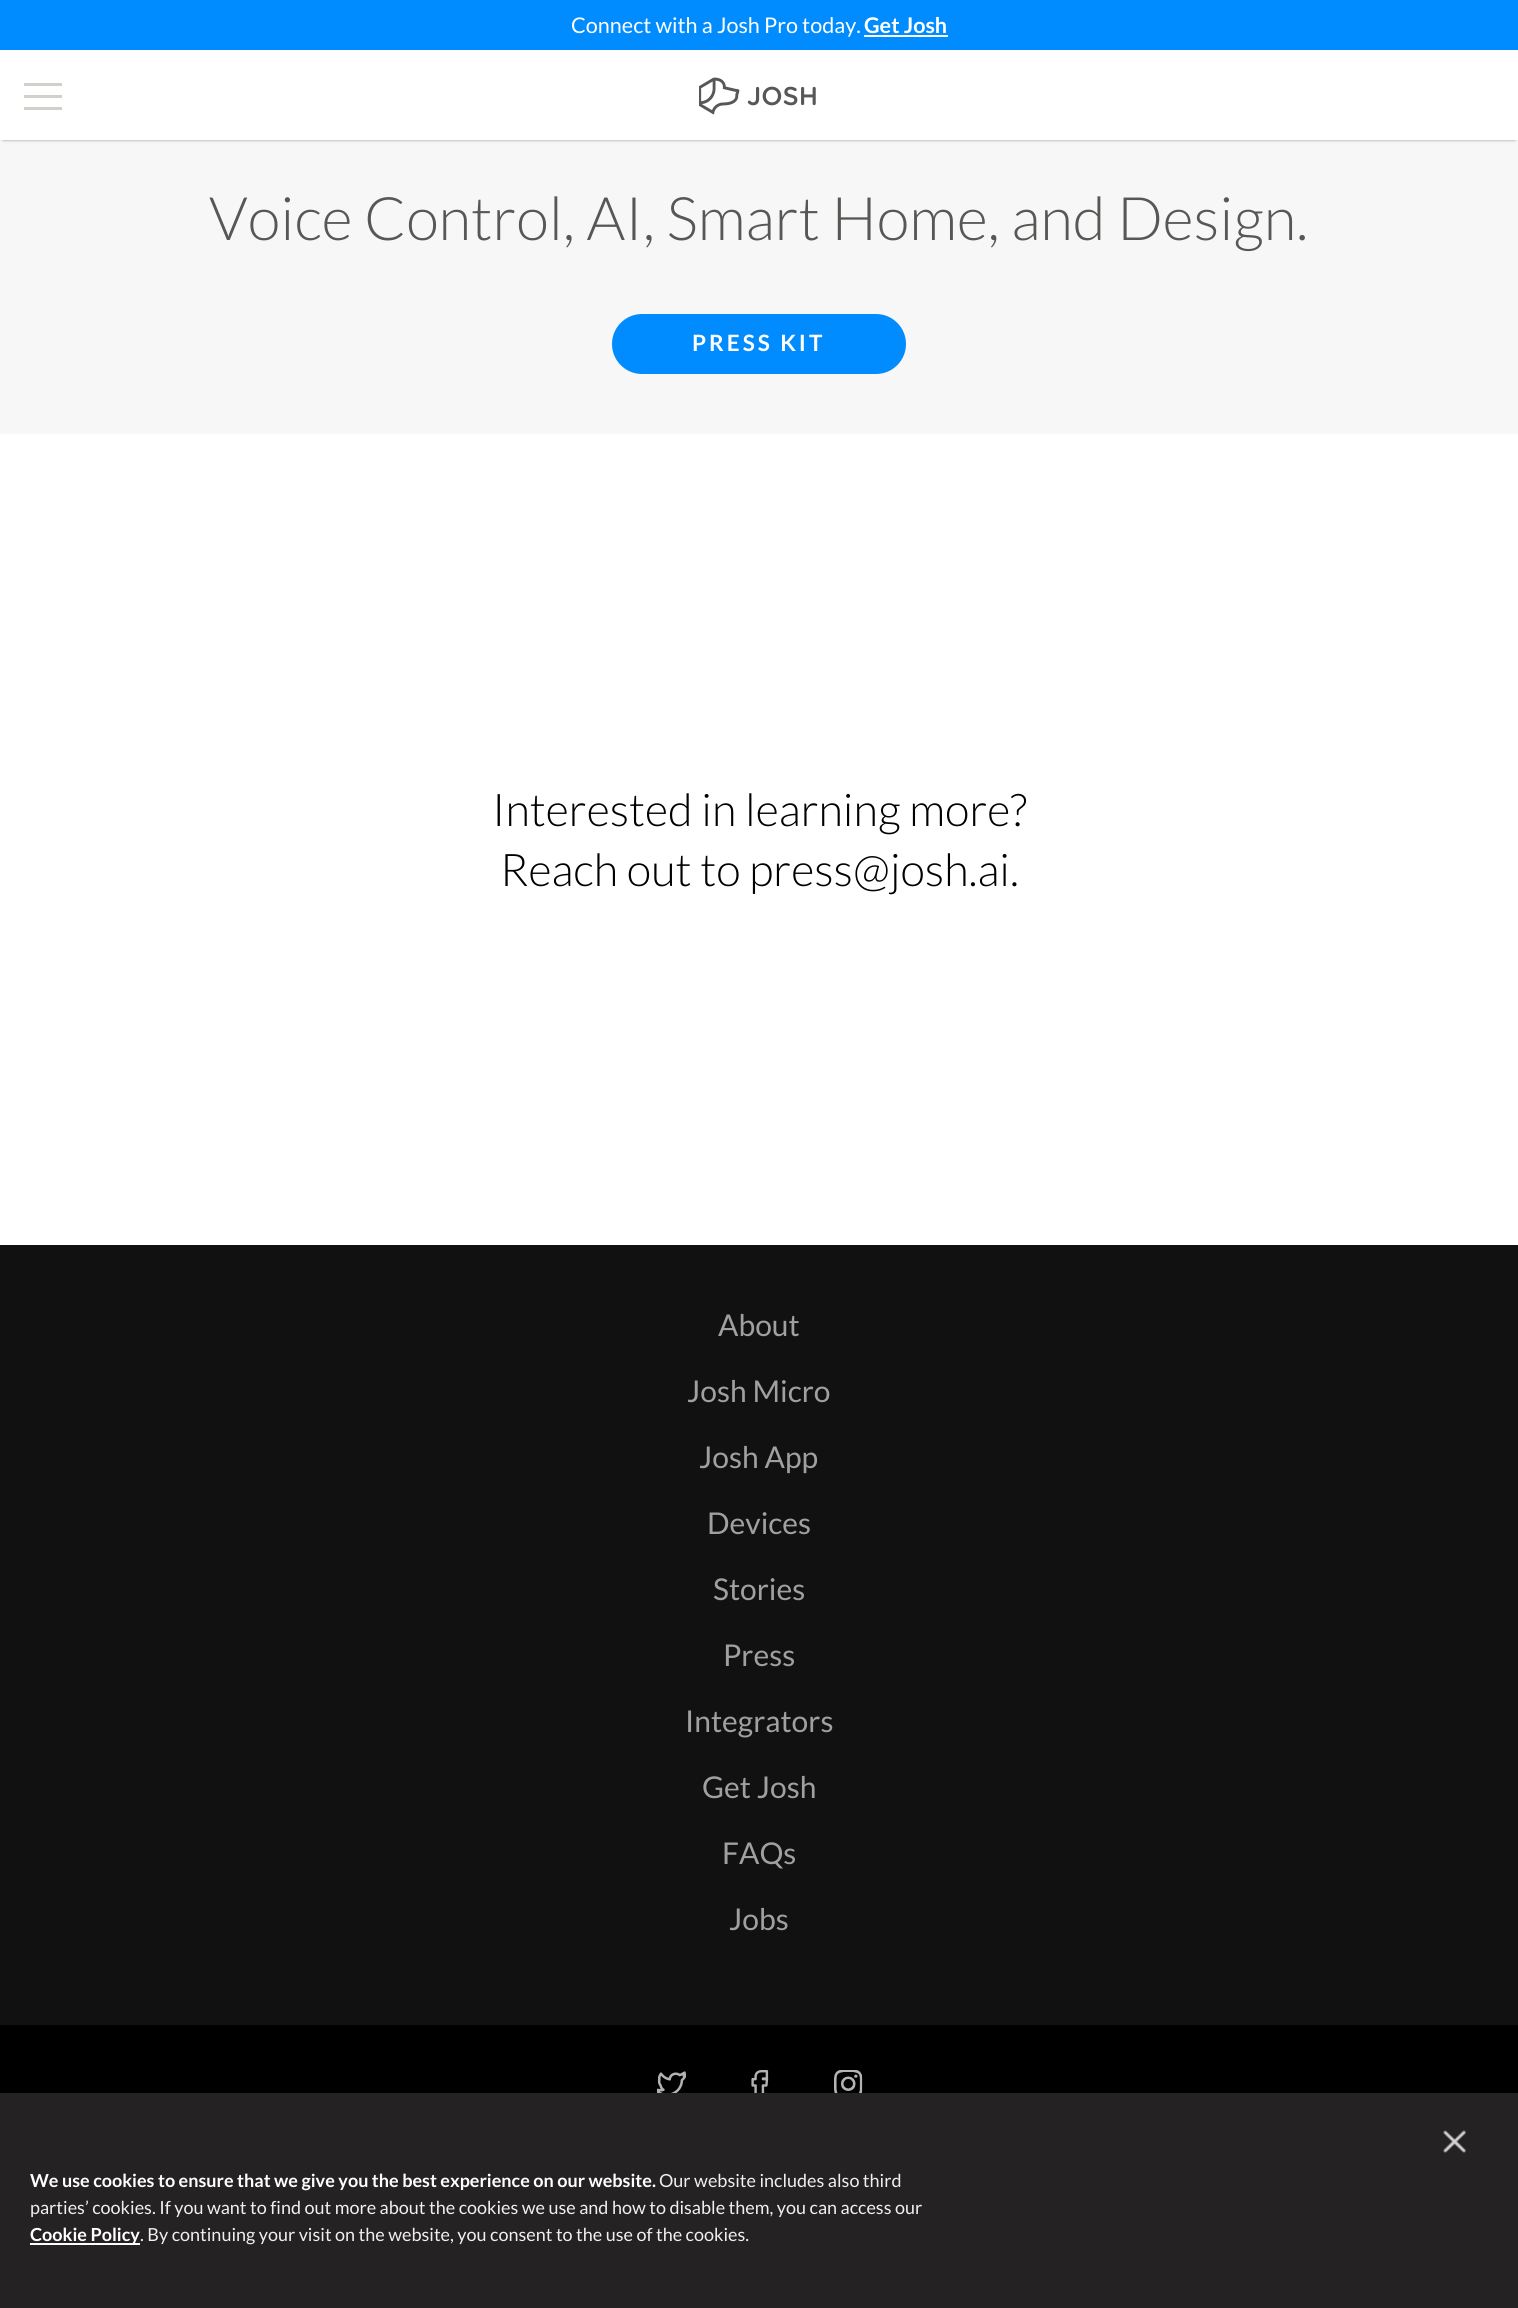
#include <cairo.h>
#include <math.h>
#include <stddef.h>


static void set_color(cairo_t *cr, unsigned color) {
    cairo_set_source_rgb(cr, (color >> 16) / 255.0, (color >> 8 & 255) / 255.0, (color & 255) / 255.0);
}

static void draw_text(cairo_t *cr, double x, double y, const char *s, const char *family, double size, int italic, int bold, unsigned color) {
    cairo_select_font_face(cr, family, italic ? CAIRO_FONT_SLANT_ITALIC : CAIRO_FONT_SLANT_NORMAL,
        bold ? CAIRO_FONT_WEIGHT_BOLD : CAIRO_FONT_WEIGHT_NORMAL);
    cairo_set_font_size(cr, size);
    set_color(cr, color);
    cairo_move_to(cr, x, y);
    cairo_show_text(cr, s);
}

static void draw_spaced(cairo_t *cr, double x, double y, const char *s, double letter, double word) {
    cairo_move_to(cr, x, y);
    while (*s) {
        char ch[5] = {0};
        int n = 0;
        do ch[n++] = *s++; while ((*s & 0xC0) == 0x80);
        cairo_show_text(cr, ch);
        cairo_rel_move_to(cr, letter + word * (*ch == ' '), 0);
    }
}

static void fill_rect(cairo_t *cr, double x, double y, double w, double h, unsigned color) {
    set_color(cr, color);
    cairo_rectangle(cr, x, y, w, h);
    cairo_fill(cr);
}

static void rounded_rect(cairo_t *cr, double x, double y, double w, double h, double r) {
    cairo_new_sub_path(cr);
    cairo_arc(cr, x + w - r, y + h - r, r, 0, M_PI / 2);
    cairo_arc(cr, x + r, y + h - r, r, M_PI / 2, M_PI);
    cairo_arc(cr, x + r, y + r, r, M_PI, 1.5 * M_PI);
    cairo_arc(cr, x + w - r, y + r, r, 1.5 * M_PI, 2 * M_PI);
    cairo_close_path(cr);
}

static void draw_shadow(cairo_t *cr, double x, double y, double w, double h, double r, double blur, double alpha) {
    cairo_push_group_with_content(cr, CAIRO_CONTENT_ALPHA);
    cairo_set_operator(cr, CAIRO_OPERATOR_SOURCE);
    for (int i = 15; i >= -15 && fmin(w, h) + blur * i / 3 > 0; i -= 2) {
        double e = blur * i / 6;
        cairo_set_source_rgba(cr, 0, 0, 0, alpha * erfc((i - 1) / 8.5) / 2);
        rounded_rect(cr, x - e, y - e, w + 2 * e, h + 2 * e, fmax(0, fmin(r + e + blur * .6, fmin(w, h) / 2 + e)));
        cairo_fill(cr);
    }
    cairo_pattern_t *soft = cairo_pop_group(cr);
    cairo_mask(cr, soft);
    cairo_pattern_destroy(soft);
}

static void draw_image(cairo_t *cr, const char *path, double x, double y, double w, double h) {
    cairo_surface_t *image = cairo_image_surface_create_from_png(path);
    cairo_save(cr);
    cairo_set_source_surface(cr, image, x, y);
    cairo_rectangle(cr, x, y, w, h);
    cairo_fill(cr);
    cairo_restore(cr);
    cairo_surface_destroy(image);
}

int main(void) {
    cairo_surface_t *surface = cairo_image_surface_create(CAIRO_FORMAT_RGB24, 1518, 2308);
    cairo_t *cr = cairo_create(surface);
    cairo_font_options_t *options = cairo_font_options_create();
    cairo_font_options_set_hint_metrics(options, CAIRO_HINT_METRICS_OFF);
    cairo_font_options_set_hint_style(options, CAIRO_HINT_STYLE_NONE);
    cairo_set_font_options(cr, options);
    cairo_set_miter_limit(cr, 4);
    set_color(cr, 0xF7F7F7);
    cairo_paint(cr);
    set_color(cr, 0x000000);
    draw_shadow(cr, 3, 6, 1512, 134, 0, 1.5, 0.4);
    fill_rect(cr, 0, 50, 1518, 90, 0xFFFFFF);
    fill_rect(cr, 0, 0, 1518, 50, 0x008CFF);
    draw_text(cr, 571, 33, "Connect with a Josh Pro today.", "Lato", 21.6, 0, 0, 0xFFFFFF);
    draw_text(cr, 864, 33, "Get Josh", "Lato", 21.6, 0, 1, 0xFFFFFF);
    fill_rect(cr, 864, 35, 84, 2, 0xFFFFFF);
    fill_rect(cr, 24, 83, 38, 3, 0xD1D1CC);
    fill_rect(cr, 24, 95, 38, 3, 0xD1D1CC);
    fill_rect(cr, 24, 107, 38, 3, 0xD1D1CC);
    draw_image(cr, "assets/img1.png", 699, 77, 117, 38);
    draw_text(cr, 209, 240, "Voice Control, AI, Smart Home, and Design.", "Lato Light", 60, 0, 0, 0x575755);
    set_color(cr, 0x008CFF);
    rounded_rect(cr, 612, 314, 294, 60, 30);
    cairo_fill(cr);
    cairo_select_font_face(cr, "Lato", CAIRO_FONT_SLANT_NORMAL, CAIRO_FONT_WEIGHT_BOLD);
    cairo_set_font_size(cr, 22.5);
    set_color(cr, 0xFFFFFF);
    draw_spaced(cr, 692, 351, "PRESS KIT", 3, 0);
    fill_rect(cr, 0, 434, 1518, 811, 0xFFFFFF);
    draw_text(cr, 492, 826, "Interested in learning more?", "Lato Light", 45, 0, 0, 0x000000);
    draw_text(cr, 500, 886, "Reach out to press@josh.ai.", "Lato Light", 45, 0, 0, 0x000000);
    fill_rect(cr, 0, 1245, 1518, 780, 0x111111);
    draw_text(cr, 718, 1336, "About", "Lato", 30, 0, 0, 0xA0A0A0);
    draw_text(cr, 687, 1402, "Josh Micro", "Lato", 30, 0, 0, 0xA0A0A0);
    draw_text(cr, 699, 1468, "Josh App", "Lato", 30, 0, 0, 0xA0A0A0);
    draw_text(cr, 707, 1534, "Devices", "Lato", 30, 0, 0, 0xA0A0A0);
    draw_text(cr, 713, 1600, "Stories", "Lato", 30, 0, 0, 0xA0A0A0);
    draw_text(cr, 723, 1666, "Press", "Lato", 30, 0, 0, 0xA0A0A0);
    draw_text(cr, 685, 1732, "Integrators", "Lato", 30, 0, 0, 0xA0A0A0);
    draw_text(cr, 702, 1798, "Get Josh", "Lato", 30, 0, 0, 0xA0A0A0);
    draw_text(cr, 722, 1864, "FAQs", "Lato", 30, 0, 0, 0xA0A0A0);
    draw_text(cr, 729, 1930, "Jobs", "Lato", 30, 0, 0, 0xA0A0A0);
    fill_rect(cr, 0, 2025, 1518, 68, 0x000000);
    draw_image(cr, "assets/img2.png", 657, 2071, 29, 22);
    draw_image(cr, "assets/img3.png", 751, 2070, 18, 23);
    draw_image(cr, "assets/img4.png", 834, 2070, 29, 23);
    fill_rect(cr, 0, 2093, 1518, 215, 0x242222);
    draw_image(cr, "assets/img5.png", 1443, 2130, 23, 23);
    draw_text(cr, 30, 2187, "We use cookies to ensure that we give you the best experience on our website.", "Lato", 18, 0, 1, 0xFFFFFF);
    draw_text(cr, 659, 2187, "Our website includes also third", "Lato", 18, 0, 0, 0xF0F0F0);
    draw_text(cr, 30, 2214, "parties’ cookies. If you want to find out more about the cookies we use and how to disable them, you can access our", "Lato", 18, 0, 0, 0xF0F0F0);
    fill_rect(cr, 30, 2243, 110, 2, 0xFFFFFF);
    draw_text(cr, 30, 2241, "Cookie Policy", "Lato", 18, 0, 1, 0xFFFFFF);
    draw_text(cr, 140, 2241, ". By continuing your visit on the website, you consent to the use of the cookies.", "Lato", 18, 0, 0, 0xF0F0F0);
    cairo_surface_write_to_png(surface, "output.png");
    cairo_font_options_destroy(options);
    cairo_destroy(cr);
    cairo_surface_destroy(surface);
    return 0;
}
